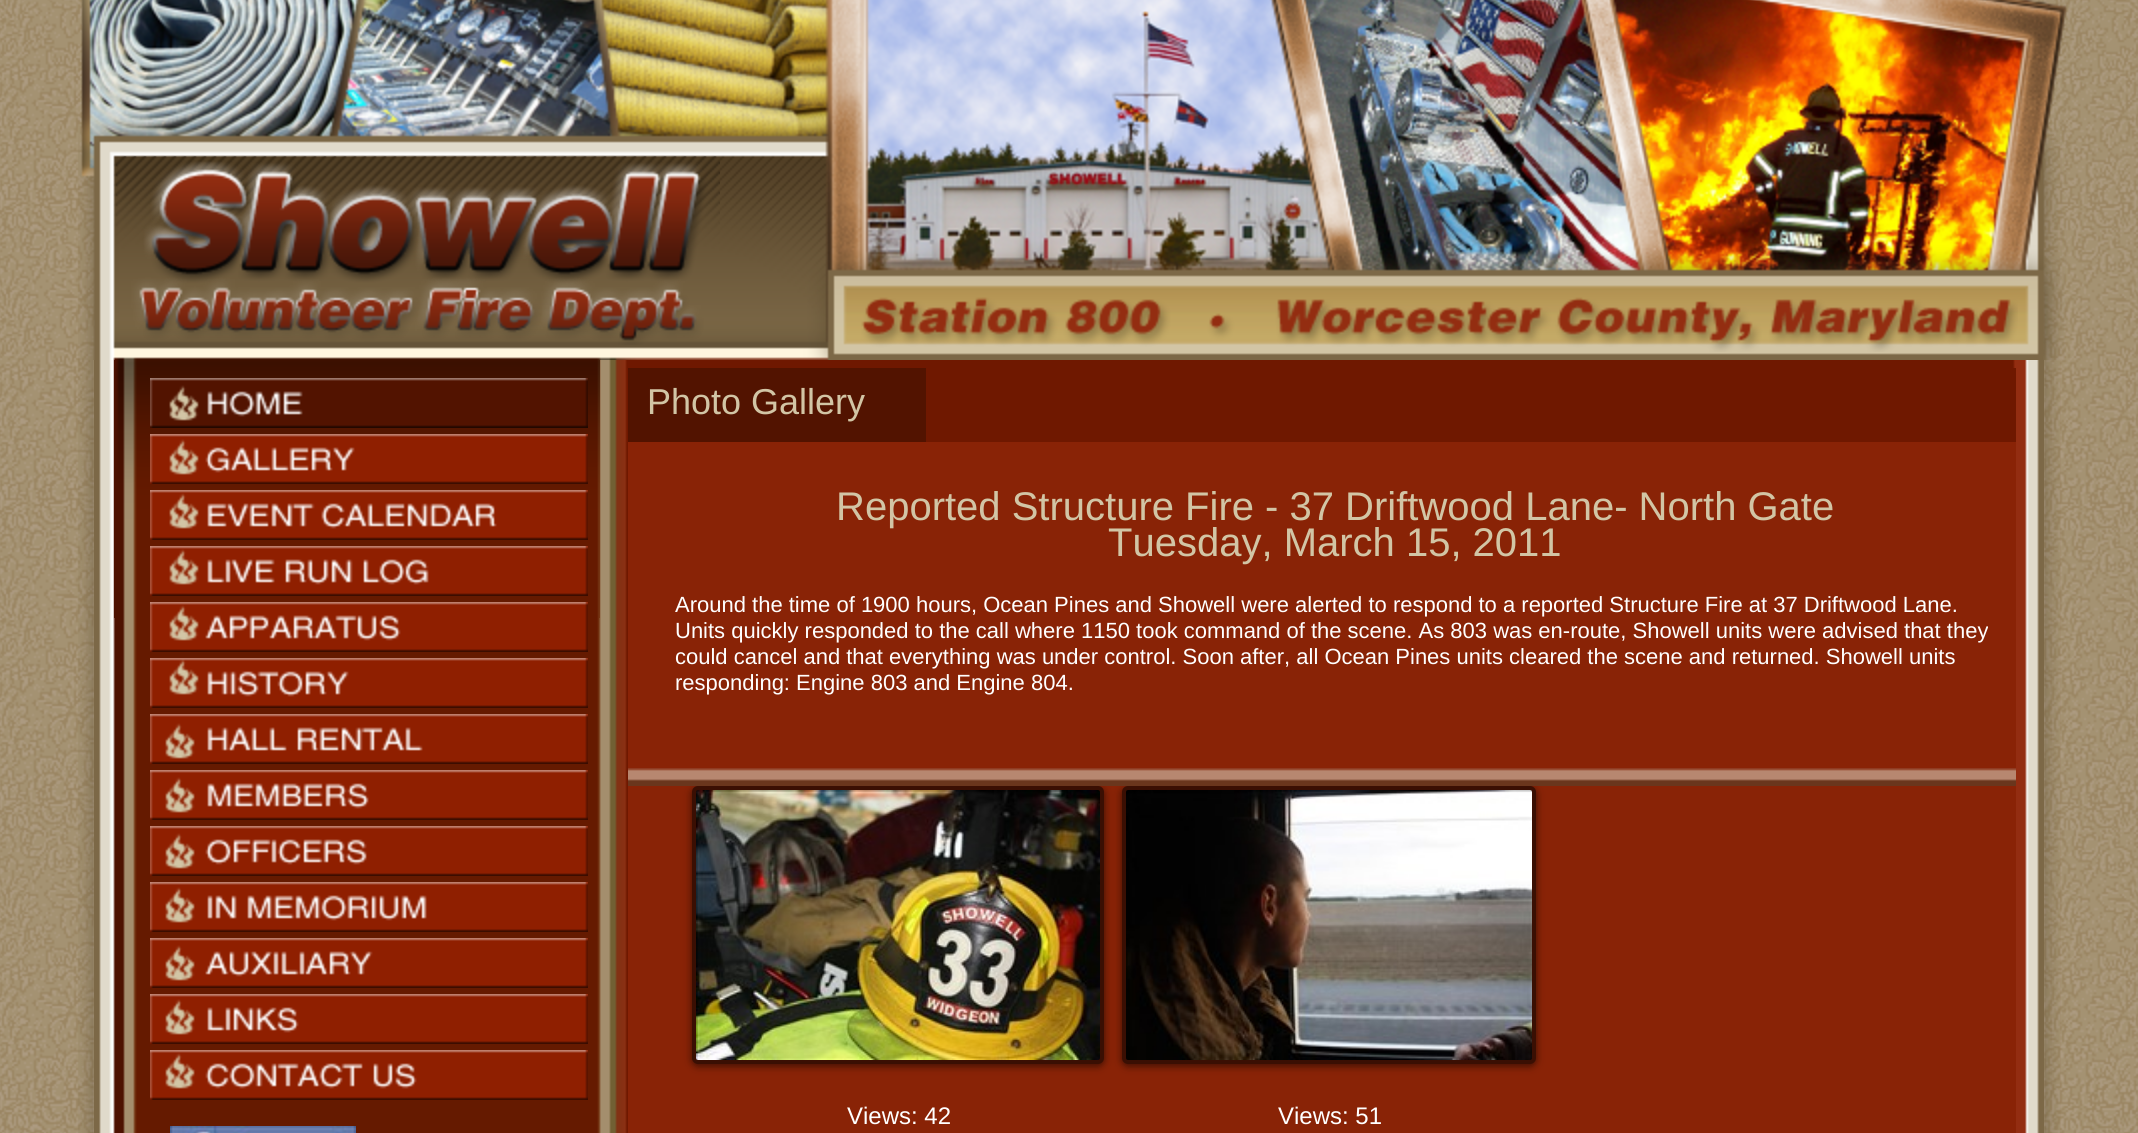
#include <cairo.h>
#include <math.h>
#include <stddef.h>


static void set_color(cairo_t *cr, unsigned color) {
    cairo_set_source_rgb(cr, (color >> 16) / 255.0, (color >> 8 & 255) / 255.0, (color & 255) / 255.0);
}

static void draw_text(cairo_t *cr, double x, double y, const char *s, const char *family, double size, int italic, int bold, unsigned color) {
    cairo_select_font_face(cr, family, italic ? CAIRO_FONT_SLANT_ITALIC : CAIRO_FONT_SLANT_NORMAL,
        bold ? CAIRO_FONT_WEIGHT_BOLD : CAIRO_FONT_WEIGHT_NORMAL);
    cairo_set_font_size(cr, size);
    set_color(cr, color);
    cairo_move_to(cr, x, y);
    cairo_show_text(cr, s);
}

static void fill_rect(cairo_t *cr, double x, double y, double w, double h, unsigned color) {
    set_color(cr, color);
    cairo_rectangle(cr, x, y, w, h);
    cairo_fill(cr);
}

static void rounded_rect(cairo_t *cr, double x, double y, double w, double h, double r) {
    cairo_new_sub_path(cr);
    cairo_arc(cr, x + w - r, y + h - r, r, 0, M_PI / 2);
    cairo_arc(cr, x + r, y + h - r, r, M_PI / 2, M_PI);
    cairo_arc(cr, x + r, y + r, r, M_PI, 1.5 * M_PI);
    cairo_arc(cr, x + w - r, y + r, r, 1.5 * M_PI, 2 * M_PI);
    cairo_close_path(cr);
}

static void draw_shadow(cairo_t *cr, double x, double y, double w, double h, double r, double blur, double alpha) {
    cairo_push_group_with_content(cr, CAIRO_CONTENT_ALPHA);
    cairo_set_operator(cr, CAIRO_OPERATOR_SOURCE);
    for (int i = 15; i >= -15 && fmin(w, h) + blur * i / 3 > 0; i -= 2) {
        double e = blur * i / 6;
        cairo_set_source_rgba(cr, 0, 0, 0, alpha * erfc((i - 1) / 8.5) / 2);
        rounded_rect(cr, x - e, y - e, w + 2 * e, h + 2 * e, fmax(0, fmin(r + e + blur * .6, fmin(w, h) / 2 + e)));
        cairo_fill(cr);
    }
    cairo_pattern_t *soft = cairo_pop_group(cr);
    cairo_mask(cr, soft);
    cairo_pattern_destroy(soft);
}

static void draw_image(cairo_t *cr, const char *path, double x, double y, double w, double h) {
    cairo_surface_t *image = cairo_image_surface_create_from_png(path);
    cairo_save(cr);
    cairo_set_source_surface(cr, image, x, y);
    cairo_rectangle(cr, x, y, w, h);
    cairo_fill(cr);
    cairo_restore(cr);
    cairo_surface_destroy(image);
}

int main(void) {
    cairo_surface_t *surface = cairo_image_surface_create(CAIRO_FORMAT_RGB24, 2138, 1133);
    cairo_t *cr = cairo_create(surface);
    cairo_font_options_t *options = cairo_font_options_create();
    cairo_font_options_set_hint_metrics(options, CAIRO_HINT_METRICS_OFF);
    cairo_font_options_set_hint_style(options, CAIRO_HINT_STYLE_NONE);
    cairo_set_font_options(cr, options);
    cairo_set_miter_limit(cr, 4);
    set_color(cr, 0xFFFFFF);
    cairo_paint(cr);
    draw_image(cr, "assets/img1.png", 0, 0, 2138, 1133);
    draw_image(cr, "assets/img2.png", 78, 0, 1989, 360);
    draw_image(cr, "assets/img3.png", 116, 156, 604, 189);
    draw_image(cr, "assets/img4.png", 861, 297, 1157, 55);
    draw_image(cr, "assets/img5.png", 78, 360, 1983, 773);
    draw_image(cr, "assets/img6.png", 94, 360, 1950, 773);
    draw_image(cr, "assets/img7.png", 114, 360, 486, 258);
    draw_image(cr, "assets/img8.png", 150, 378, 438, 50);
    draw_image(cr, "assets/img9.png", 150, 434, 438, 50);
    draw_image(cr, "assets/img10.png", 150, 490, 438, 50);
    draw_image(cr, "assets/img11.png", 150, 546, 438, 50);
    draw_image(cr, "assets/img12.png", 150, 602, 438, 50);
    draw_image(cr, "assets/img13.png", 150, 658, 438, 50);
    draw_image(cr, "assets/img14.png", 150, 714, 438, 50);
    draw_image(cr, "assets/img15.png", 150, 770, 438, 50);
    draw_image(cr, "assets/img16.png", 150, 826, 438, 50);
    draw_image(cr, "assets/img17.png", 150, 882, 438, 50);
    draw_image(cr, "assets/img18.png", 150, 938, 438, 50);
    draw_image(cr, "assets/img19.png", 150, 994, 438, 50);
    draw_image(cr, "assets/img20.png", 150, 1050, 438, 50);
    draw_image(cr, "assets/img21.png", 170, 1126, 186, 7);
    fill_rect(cr, 628, 442, 1388, 691, 0x892306);
    fill_rect(cr, 2013, 368, 3, 74, 0x6F1800);
    fill_rect(cr, 628, 368, 298, 74, 0x521300);
    draw_text(cr, 647, 414, "Photo Gallery", "Liberation Sans", 36, 0, 0, 0xD2C5A5);
    draw_text(cr, 836, 520, "Reported Structure Fire - 37 Driftwood Lane- North Gate", "Liberation Sans", 40, 0, 0, 0xD2C5A5);
    draw_text(cr, 1108, 556, "Tuesday, March 15, 2011", "Liberation Sans", 40, 0, 0, 0xD2C5A5);
    draw_text(cr, 675, 612, "Around the time of 1900 hours, Ocean Pines and Showell were alerted to respond to a reported Structure Fire at 37 Driftwood Lane.", "Liberation Sans", 22, 0, 0, 0xFFFFFF);
    draw_text(cr, 675, 638, "Units quickly responded to the call where 1150 took command of the scene. As 803 was en-route, Showell units were advised that they", "Liberation Sans", 22, 0, 0, 0xFFFFFF);
    draw_text(cr, 675, 664, "could cancel and that everything was under control. Soon after, all Ocean Pines units cleared the scene and returned. Showell units", "Liberation Sans", 22, 0, 0, 0xFFFFFF);
    draw_text(cr, 675, 690, "responding: Engine 803 and Engine 804.", "Liberation Sans", 22, 0, 0, 0xFFFFFF);
    draw_image(cr, "assets/img22.png", 628, 768, 1388, 18);
    cairo_save(cr);
    cairo_rectangle(cr, 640, 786, 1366, 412);
    cairo_clip(cr);
    set_color(cr, 0x3A0F03);
    draw_shadow(cr, 692, 788, 412, 278, 6, 4, 1);
    cairo_restore(cr);
    set_color(cr, 0x3A0F03);
    rounded_rect(cr, 693, 787, 410, 276, 5);
    cairo_fill_preserve(cr);
    cairo_stroke(cr);
    draw_image(cr, "assets/img23.png", 696, 790, 404, 270);
    draw_text(cr, 847, 1124, "Views: 42", "Liberation Sans", 24, 0, 0, 0xFFFFFF);
    cairo_save(cr);
    cairo_rectangle(cr, 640, 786, 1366, 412);
    cairo_clip(cr);
    set_color(cr, 0x3A0F03);
    draw_shadow(cr, 1122, 788, 414, 278, 6, 4, 1);
    cairo_restore(cr);
    set_color(cr, 0x3A0F03);
    rounded_rect(cr, 1123, 787, 412, 276, 5);
    cairo_fill_preserve(cr);
    cairo_stroke(cr);
    draw_image(cr, "assets/img24.png", 1126, 790, 406, 270);
    draw_text(cr, 1278, 1124, "Views: 51", "Liberation Sans", 24, 0, 0, 0xFFFFFF);
    cairo_surface_write_to_png(surface, "output.png");
    cairo_font_options_destroy(options);
    cairo_destroy(cr);
    cairo_surface_destroy(surface);
    return 0;
}
